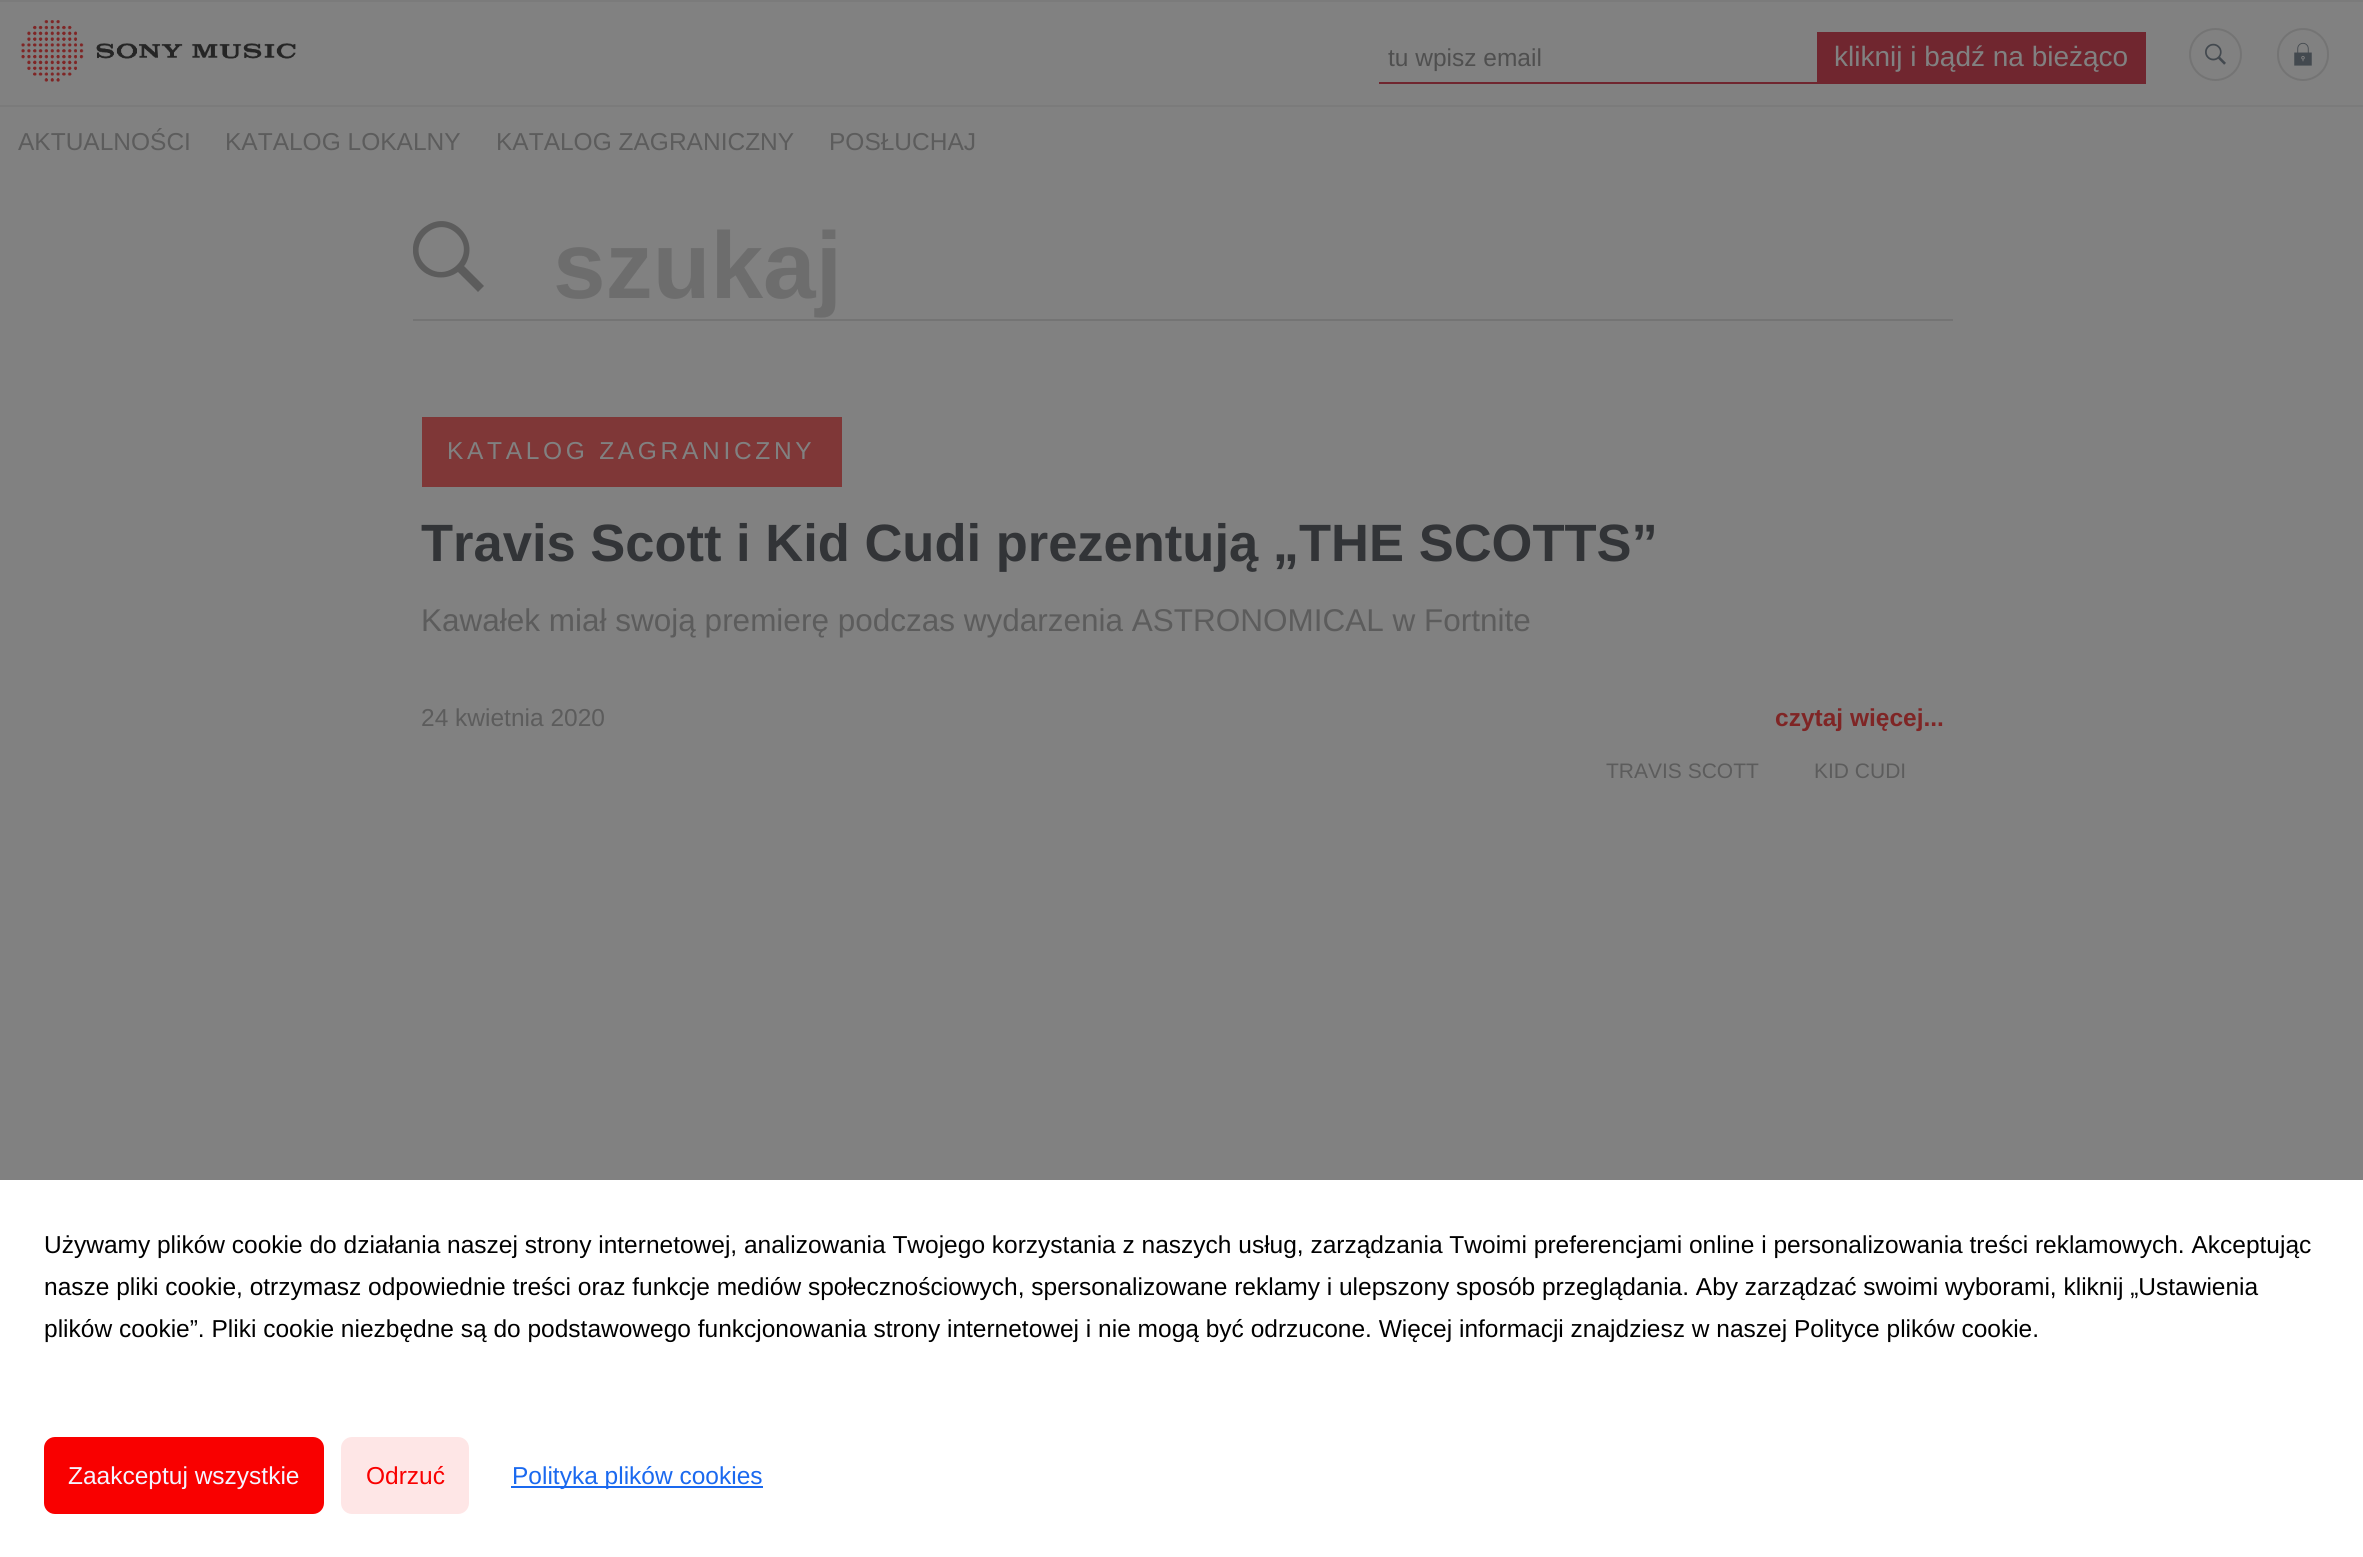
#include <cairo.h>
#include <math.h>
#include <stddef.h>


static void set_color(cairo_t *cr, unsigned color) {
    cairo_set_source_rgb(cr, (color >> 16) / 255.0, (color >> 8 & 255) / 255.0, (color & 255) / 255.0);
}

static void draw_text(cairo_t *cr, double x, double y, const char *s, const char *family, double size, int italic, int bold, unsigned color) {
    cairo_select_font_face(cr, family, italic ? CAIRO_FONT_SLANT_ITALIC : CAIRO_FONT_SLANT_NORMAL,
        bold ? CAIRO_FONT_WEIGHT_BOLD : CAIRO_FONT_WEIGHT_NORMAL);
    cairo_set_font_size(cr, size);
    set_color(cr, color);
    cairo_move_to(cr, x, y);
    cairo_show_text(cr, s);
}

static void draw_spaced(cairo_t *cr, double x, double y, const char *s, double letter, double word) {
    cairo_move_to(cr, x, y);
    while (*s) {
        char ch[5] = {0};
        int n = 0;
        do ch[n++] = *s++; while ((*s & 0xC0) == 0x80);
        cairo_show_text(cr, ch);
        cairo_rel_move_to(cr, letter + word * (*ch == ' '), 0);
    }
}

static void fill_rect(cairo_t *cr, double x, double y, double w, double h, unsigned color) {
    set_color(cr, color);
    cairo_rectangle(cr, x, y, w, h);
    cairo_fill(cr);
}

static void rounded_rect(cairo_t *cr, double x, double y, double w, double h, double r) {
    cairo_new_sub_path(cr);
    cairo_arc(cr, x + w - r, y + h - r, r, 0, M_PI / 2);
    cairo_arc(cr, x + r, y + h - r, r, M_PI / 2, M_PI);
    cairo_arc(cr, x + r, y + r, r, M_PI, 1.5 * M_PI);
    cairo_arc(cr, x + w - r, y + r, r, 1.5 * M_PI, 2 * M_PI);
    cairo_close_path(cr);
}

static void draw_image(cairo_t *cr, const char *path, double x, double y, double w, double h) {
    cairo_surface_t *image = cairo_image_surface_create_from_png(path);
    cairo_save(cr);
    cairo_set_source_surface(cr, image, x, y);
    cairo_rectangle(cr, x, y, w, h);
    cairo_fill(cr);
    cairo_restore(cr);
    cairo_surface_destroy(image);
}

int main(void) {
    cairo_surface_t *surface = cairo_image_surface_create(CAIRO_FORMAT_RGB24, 2363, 1557);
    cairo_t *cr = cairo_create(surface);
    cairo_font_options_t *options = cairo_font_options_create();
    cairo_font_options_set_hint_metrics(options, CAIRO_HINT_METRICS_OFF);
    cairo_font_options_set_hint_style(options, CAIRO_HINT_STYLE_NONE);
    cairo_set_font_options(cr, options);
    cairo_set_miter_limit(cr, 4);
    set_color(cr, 0x818181);
    cairo_paint(cr);
    fill_rect(cr, 0, 0, 2363, 2, 0x7B7B7B);
    draw_image(cr, "assets/img1.png", 21, 20, 275, 62);
    fill_rect(cr, 1379, 82, 438, 2, 0x70262F);
    draw_text(cr, 1388, 66, "tu wpisz email", "Liberation Sans", 24.5, 0, 0, 0x4F4F4F);
    fill_rect(cr, 1817, 32, 329, 52, 0x70262F);
    draw_text(cr, 1834, 66, "kliknij i bądź na bieżąco", "Liberation Sans", 28, 0, 0, 0x818181);
    cairo_new_path(cr);
    cairo_arc(cr, 2215.5, 54.5, 25.5, 0, 2 * M_PI);
    set_color(cr, 0x747474);
    cairo_stroke(cr);
    draw_image(cr, "assets/img2.png", 2205, 43, 21, 22);
    rounded_rect(cr, 2278, 29, 50, 51, 25);
    cairo_stroke(cr);
    draw_image(cr, "assets/img3.png", 2294, 42, 18, 24);
    fill_rect(cr, 0, 105, 2363, 2, 0x7B7B7B);
    draw_text(cr, 18, 150, "AKTUALNOŚCI", "Liberation Sans", 24.5, 0, 0, 0x5C5C5C);
    draw_text(cr, 225, 150, "KATALOG LOKALNY", "Liberation Sans", 24.5, 0, 0, 0x5C5C5C);
    draw_text(cr, 496, 150, "KATALOG ZAGRANICZNY", "Liberation Sans", 24.5, 0, 0, 0x5C5C5C);
    draw_text(cr, 829, 150, "POSŁUCHAJ", "Liberation Sans", 24.5, 0, 0, 0x5C5C5C);
    fill_rect(cr, 413, 319, 1540, 2, 0x747474);
    cairo_save(cr);
    cairo_rectangle(cr, 413, 210, 1540, 109);
    cairo_clip(cr);
    set_color(cr, 0x5C5C5C);
    cairo_new_path(cr);
    cairo_move_to(cr, 465, 265);
    cairo_line_to(cr, 464, 266);
    cairo_line_to(cr, 484, 286);
    cairo_line_to(cr, 478, 292);
    cairo_line_to(cr, 458, 272);
    cairo_curve_to(cr, 444, 282, 424, 278, 416, 263);
    cairo_curve_to(cr, 412, 255, 412, 246, 415, 239);
    cairo_curve_to(cr, 417, 234, 421, 229, 426, 226);
    cairo_curve_to(cr, 451, 209, 481, 239, 465, 265);
    cairo_close_path(cr);
    cairo_move_to(cr, 457, 234);
    cairo_curve_to(cr, 436, 213, 405, 245, 425, 265);
    cairo_curve_to(cr, 446, 286, 478, 255, 457, 234);
    cairo_close_path(cr);
    cairo_fill(cr);
    cairo_restore(cr);
    draw_text(cr, 553, 298, "szukaj", "Liberation Sans", 94.5, 0, 1, 0x6D6D6D);
    fill_rect(cr, 422, 417, 420, 70, 0x7F3737);
    cairo_select_font_face(cr, "Liberation Sans", CAIRO_FONT_SLANT_NORMAL, CAIRO_FONT_WEIGHT_NORMAL);
    cairo_set_font_size(cr, 24.5);
    set_color(cr, 0x818181);
    draw_spaced(cr, 447, 459, "KATALOG ZAGRANICZNY", 3.7, 0);
    draw_text(cr, 421, 561, "Travis Scott i Kid Cudi prezentują „THE SCOTTS”", "Liberation Sans", 52.5, 0, 1, 0x323437);
    draw_text(cr, 421, 631, "Kawałek miał swoją premierę podczas wydarzenia ASTRONOMICAL w Fortnite", "Liberation Sans", 31.5, 0, 0, 0x5C5C5C);
    draw_text(cr, 421, 726, "24 kwietnia 2020", "Liberation Sans", 24.5, 0, 0, 0x5C5C5C);
    draw_text(cr, 1775, 726, "czytaj więcej...", "Liberation Sans", 24.5, 0, 1, 0x7F2525);
    draw_text(cr, 1606, 778, "TRAVIS SCOTT", "Liberation Sans", 21, 0, 0, 0x5C5C5C);
    draw_text(cr, 1814, 778, "KID CUDI", "Liberation Sans", 21, 0, 0, 0x5C5C5C);
    fill_rect(cr, 0, 1180, 2363, 377, 0xFFFFFF);
    draw_text(cr, 44, 1253, "Używamy plików cookie do działania naszej strony internetowej, analizowania Twojego korzystania z naszych usług, zarządzania Twoimi preferencjami online i personalizowania treści reklamowych. Akceptując", "Liberation Sans", 24.5, 0, 0, 0x000000);
    draw_text(cr, 44, 1295, "nasze pliki cookie, otrzymasz odpowiednie treści oraz funkcje mediów społecznościowych, spersonalizowane reklamy i ulepszony sposób przeglądania. Aby zarządzać swoimi wyborami, kliknij „Ustawienia", "Liberation Sans", 24.5, 0, 0, 0x000000);
    draw_text(cr, 44, 1337, "plików cookie”. Pliki cookie niezbędne są do podstawowego funkcjonowania strony internetowej i nie mogą być odrzucone. Więcej informacji znajdziesz w naszej Polityce plików cookie.", "Liberation Sans", 24.5, 0, 0, 0x000000);
    set_color(cr, 0xF90000);
    rounded_rect(cr, 44, 1437, 280, 77, 11);
    cairo_fill(cr);
    draw_text(cr, 68, 1484, "Zaakceptuj wszystkie", "Liberation Sans", 24.5, 0, 0, 0xF5F4FF);
    set_color(cr, 0xFEE6E6);
    rounded_rect(cr, 341, 1437, 128, 77, 11);
    cairo_fill(cr);
    draw_text(cr, 366, 1484, "Odrzuć", "Liberation Sans", 24.5, 0, 0, 0xF90000);
    fill_rect(cr, 511, 1486, 252, 2, 0x1A69EF);
    draw_text(cr, 512, 1484, "Polityka plików cookies", "Liberation Sans", 24.5, 0, 0, 0x1A69EF);
    cairo_surface_write_to_png(surface, "output.png");
    cairo_font_options_destroy(options);
    cairo_destroy(cr);
    cairo_surface_destroy(surface);
    return 0;
}
